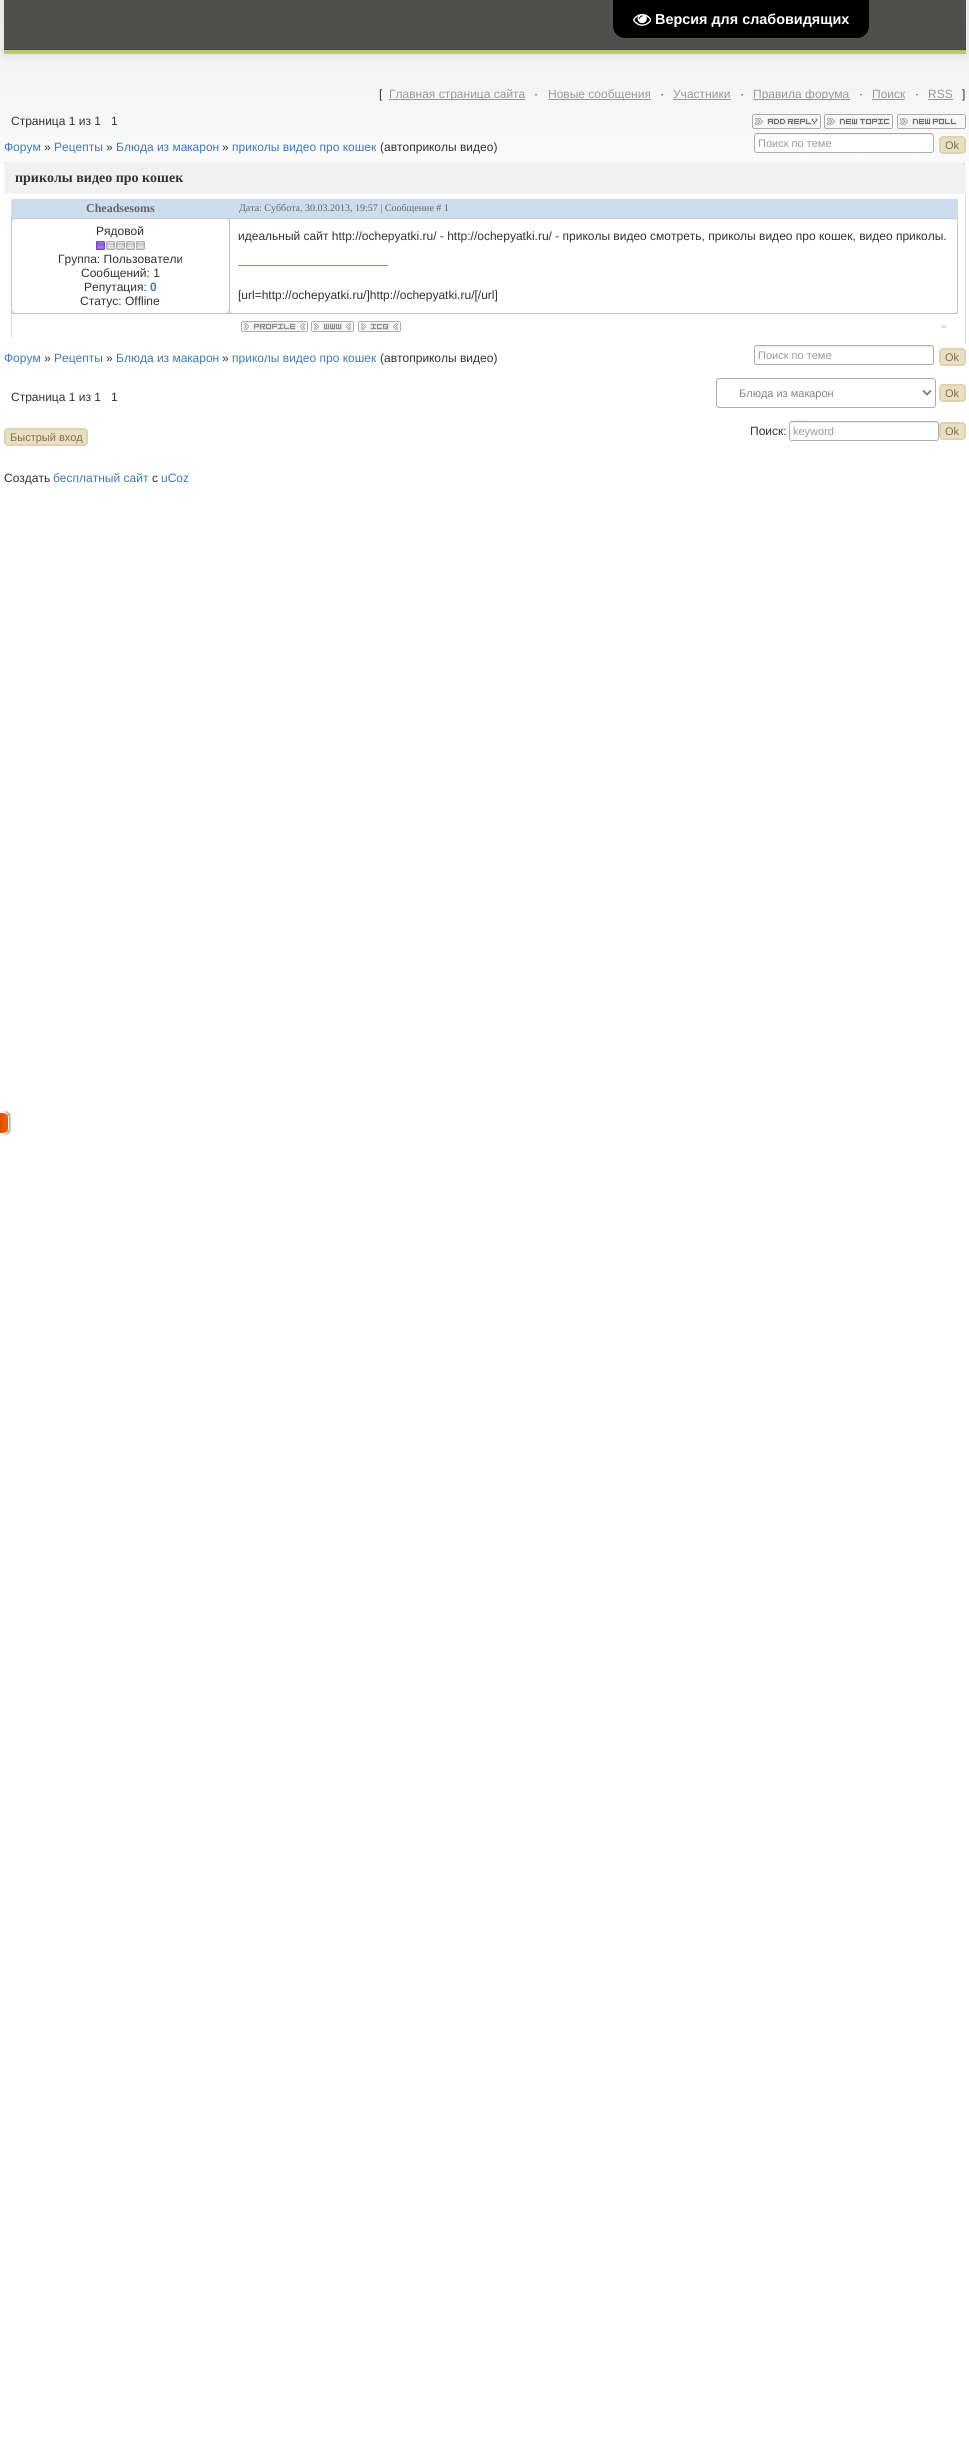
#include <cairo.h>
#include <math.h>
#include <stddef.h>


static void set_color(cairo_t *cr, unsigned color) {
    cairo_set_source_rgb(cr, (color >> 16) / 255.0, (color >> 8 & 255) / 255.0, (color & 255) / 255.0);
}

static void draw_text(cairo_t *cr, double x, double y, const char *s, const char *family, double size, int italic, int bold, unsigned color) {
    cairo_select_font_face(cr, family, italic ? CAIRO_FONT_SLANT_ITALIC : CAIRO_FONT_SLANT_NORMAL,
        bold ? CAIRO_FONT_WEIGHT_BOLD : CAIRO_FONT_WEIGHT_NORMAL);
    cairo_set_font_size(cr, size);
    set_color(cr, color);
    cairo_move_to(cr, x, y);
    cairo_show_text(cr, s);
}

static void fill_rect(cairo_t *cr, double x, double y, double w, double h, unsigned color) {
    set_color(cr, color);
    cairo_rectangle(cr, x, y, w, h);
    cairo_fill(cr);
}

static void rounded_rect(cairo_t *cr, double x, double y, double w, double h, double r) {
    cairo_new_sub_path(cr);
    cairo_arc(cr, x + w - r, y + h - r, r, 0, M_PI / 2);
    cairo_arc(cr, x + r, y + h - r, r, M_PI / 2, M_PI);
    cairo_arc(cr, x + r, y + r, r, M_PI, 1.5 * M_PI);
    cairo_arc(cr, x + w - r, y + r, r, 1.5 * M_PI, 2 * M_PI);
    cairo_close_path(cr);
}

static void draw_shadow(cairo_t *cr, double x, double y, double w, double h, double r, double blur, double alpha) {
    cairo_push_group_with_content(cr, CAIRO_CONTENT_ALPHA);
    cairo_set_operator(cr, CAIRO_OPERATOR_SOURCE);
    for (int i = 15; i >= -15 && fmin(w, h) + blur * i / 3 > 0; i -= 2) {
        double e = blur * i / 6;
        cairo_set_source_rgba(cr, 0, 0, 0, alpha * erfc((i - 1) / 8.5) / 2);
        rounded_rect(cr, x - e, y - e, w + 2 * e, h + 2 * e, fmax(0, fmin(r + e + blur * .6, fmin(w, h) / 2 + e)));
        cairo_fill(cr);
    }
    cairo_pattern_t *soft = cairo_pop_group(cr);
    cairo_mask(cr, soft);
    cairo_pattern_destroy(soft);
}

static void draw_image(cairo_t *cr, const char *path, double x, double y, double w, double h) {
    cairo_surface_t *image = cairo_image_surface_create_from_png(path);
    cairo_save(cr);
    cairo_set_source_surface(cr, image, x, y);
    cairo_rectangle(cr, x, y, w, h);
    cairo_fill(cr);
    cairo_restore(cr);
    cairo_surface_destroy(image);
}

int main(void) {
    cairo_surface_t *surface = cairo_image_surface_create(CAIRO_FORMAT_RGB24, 969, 2448);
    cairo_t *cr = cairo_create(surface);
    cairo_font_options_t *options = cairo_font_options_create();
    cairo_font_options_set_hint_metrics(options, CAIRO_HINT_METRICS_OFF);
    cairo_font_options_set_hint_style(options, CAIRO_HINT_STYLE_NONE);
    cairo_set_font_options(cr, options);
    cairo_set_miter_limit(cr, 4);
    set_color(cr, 0xFFFFFF);
    cairo_paint(cr);
    draw_image(cr, "assets/img2.png", 0, 0, 969, 164);
    set_color(cr, 0x000000);
    draw_shadow(cr, 4, 1, 962, 54, 0, 5, 0.1);
    fill_rect(cr, 4, 0, 962, 49, 0x4F4F4E);
    set_color(cr, 0x000000);
    cairo_new_path(cr);
    cairo_move_to(cr, 613, 0);
    cairo_line_to(cr, 869, 0);
    cairo_line_to(cr, 869, 26);
    cairo_curve_to(cr, 869, 32.5, 863.5, 38, 857, 38);
    cairo_line_to(cr, 625, 38);
    cairo_curve_to(cr, 618.5, 38, 613, 32.5, 613, 26);
    cairo_close_path(cr);
    cairo_fill(cr);
    draw_image(cr, "assets/img1.png", 633, 13, 18, 13);
    draw_text(cr, 655, 24, "Версия для слабовидящих", "Liberation Sans", 14.4, 0, 1, 0xFFFFFF);
    fill_rect(cr, 4, 49, 962, 1, 0x474746);
    fill_rect(cr, 4, 50, 962, 4, 0xB1CC70);
    draw_text(cr, 379, 98, "[", "Liberation Sans", 12, 0, 0, 0x333333);
    fill_rect(cr, 389, 99, 136, 1, 0x999999);
    draw_text(cr, 389, 98, "Главная страница сайта", "Liberation Sans", 12, 0, 0, 0x999999);
    draw_text(cr, 534, 98, "·", "Liberation Sans", 12, 0, 0, 0x333333);
    fill_rect(cr, 548, 99, 103, 1, 0x999999);
    draw_text(cr, 548, 98, "Новые сообщения", "Liberation Sans", 12, 0, 0, 0x999999);
    draw_text(cr, 660, 98, "·", "Liberation Sans", 12, 0, 0, 0x333333);
    draw_text(cr, 673, 98, "Участники", "Liberation Sans", 12, 0, 0, 0x999999);
    fill_rect(cr, 673, 99, 58, 1, 0x999999);
    draw_text(cr, 740, 98, "·", "Liberation Sans", 12, 0, 0, 0x333333);
    fill_rect(cr, 753, 99, 97, 1, 0x999999);
    draw_text(cr, 753, 98, "Правила форума", "Liberation Sans", 12, 0, 0, 0x999999);
    draw_text(cr, 859, 98, "·", "Liberation Sans", 12, 0, 0, 0x333333);
    draw_text(cr, 872, 98, "Поиск", "Liberation Sans", 12, 0, 0, 0x999999);
    fill_rect(cr, 872, 99, 33, 1, 0x999999);
    draw_text(cr, 915, 98, "·", "Liberation Sans", 12, 0, 0, 0x333333);
    draw_text(cr, 928, 98, "RSS", "Liberation Sans", 12, 0, 0, 0x999999);
    fill_rect(cr, 928, 99, 25, 1, 0x999999);
    draw_text(cr, 962, 98, "]", "Liberation Sans", 12, 0, 0, 0x333333);
    draw_text(cr, 11, 125, "Страница 1 из 1", "Liberation Sans", 12, 0, 0, 0x333333);
    draw_text(cr, 111, 125, "1", "Liberation Sans", 12, 0, 0, 0x333333);
    draw_image(cr, "assets/img3.png", 752, 114, 69, 15);
    draw_image(cr, "assets/img4.png", 824, 114, 69, 15);
    draw_image(cr, "assets/img5.png", 897, 114, 69, 15);
    draw_text(cr, 4, 151, "Форум", "Liberation Sans", 12, 0, 0, 0x407AB2);
    draw_text(cr, 44, 151, "»", "Liberation Sans", 12, 0, 0, 0x333333);
    draw_text(cr, 54, 151, "Рецепты", "Liberation Sans", 12, 0, 0, 0x407AB2);
    draw_text(cr, 106, 151, "»", "Liberation Sans", 12, 0, 0, 0x333333);
    draw_text(cr, 116, 151, "Блюда из макарон", "Liberation Sans", 12, 0, 0, 0x407AB2);
    draw_text(cr, 222, 151, "»", "Liberation Sans", 12, 0, 0, 0x333333);
    draw_text(cr, 232, 151, "приколы видео про кошек", "Liberation Sans", 12, 0, 0, 0x407AB2);
    draw_text(cr, 380, 151, "(автоприколы видео)", "Liberation Sans", 12, 0, 0, 0x333333);
    set_color(cr, 0xFFFFFF);
    rounded_rect(cr, 754, 133, 180, 20, 3);
    cairo_fill(cr);
    set_color(cr, 0xECECEC);
    cairo_new_path(cr);
    cairo_move_to(cr, 757, 135);
    cairo_line_to(cr, 931, 135);
    cairo_curve_to(cr, 932, 135, 933, 136, 933, 137);
    cairo_curve_to(cr, 933, 136, 933, 134, 931, 134);
    cairo_line_to(cr, 756, 134);
    cairo_curve_to(cr, 755, 135, 755, 136, 755, 137);
    cairo_curve_to(cr, 755, 136, 756, 135, 757, 135);
    cairo_close_path(cr);
    cairo_fill(cr);
    rounded_rect(cr, 754.5, 133.5, 179, 19, 2.5);
    set_color(cr, 0xABADB3);
    cairo_set_line_width(cr, 1);
    cairo_stroke(cr);
    draw_text(cr, 758, 147, "Поиск по теме", "Liberation Sans", 11, 0, 0, 0x999999);
    set_color(cr, 0xEADFC1);
    rounded_rect(cr, 940, 137, 25, 16, 3);
    cairo_fill_preserve(cr);
    set_color(cr, 0xDDD3B4);
    cairo_set_line_width(cr, 2);
    cairo_stroke(cr);
    draw_text(cr, 945, 149, "Ok", "Liberation Sans", 11, 0, 0, 0x7F7047);
    set_color(cr, 0xDCDBE0);
    cairo_new_path(cr);
    cairo_move_to(cr, 9, 162);
    cairo_line_to(cr, 961, 162);
    cairo_curve_to(cr, 964, 162, 966, 164, 966, 167);
    cairo_line_to(cr, 966, 343);
    cairo_line_to(cr, 4, 343);
    cairo_line_to(cr, 4, 167);
    cairo_curve_to(cr, 4, 164, 6, 162, 9, 162);
    cairo_close_path(cr);
    cairo_fill(cr);
    set_color(cr, 0xF1F1F1);
    cairo_new_path(cr);
    cairo_move_to(cr, 9, 163);
    cairo_line_to(cr, 960, 163);
    cairo_curve_to(cr, 963, 163, 965, 165, 965, 168);
    cairo_line_to(cr, 965, 194);
    cairo_line_to(cr, 4, 194);
    cairo_line_to(cr, 4, 168);
    cairo_curve_to(cr, 4, 165, 6, 163, 9, 163);
    cairo_close_path(cr);
    cairo_fill(cr);
    fill_rect(cr, 4, 162, 962, 1, 0xF5F5F5);
    fill_rect(cr, 965, 162, 1, 32, 0xF5F5F5);
    fill_rect(cr, 4, 193, 962, 1, 0xF5F5F5);
    fill_rect(cr, 4, 162, 1, 32, 0xF5F5F5);
    draw_text(cr, 15, 182, "приколы видео про кошек", "Liberation Serif", 14, 0, 1, 0x333333);
    fill_rect(cr, 4, 194, 961, 149, 0xFFFFFF);
    fill_rect(cr, 11, 199, 946, 139, 0xDCDBE0);
    fill_rect(cr, 12, 199, 946, 19, 0xCDDDED);
    draw_text(cr, 86, 212, "Cheadsesoms", "Liberation Serif", 12, 0, 1, 0x666666);
    draw_text(cr, 239, 211, "Дата: Суббота, 30.03.2013, 19:57 | Сообщение # 1", "Liberation Serif", 10, 0, 0, 0x666666);
    set_color(cr, 0xFFFFFF);
    rounded_rect(cr, 12, 218, 217, 95, 5);
    cairo_fill(cr);
    rounded_rect(cr, 229, 218, 729, 95, 5);
    cairo_fill(cr);
    fill_rect(cr, 229, 218, 729, 1, 0xCBC7C7);
    fill_rect(cr, 957, 218, 1, 96, 0xCBC7C7);
    fill_rect(cr, 229, 313, 729, 1, 0xCBC7C7);
    fill_rect(cr, 229, 218, 1, 96, 0xCBC7C7);
    fill_rect(cr, 11, 218, 219, 1, 0xCBC7C7);
    fill_rect(cr, 11, 313, 219, 1, 0xCBC7C7);
    fill_rect(cr, 11, 218, 1, 96, 0xCBC7C7);
    draw_text(cr, 96, 235, "Рядовой", "Liberation Sans", 12, 0, 0, 0x333333);
    draw_image(cr, "assets/img6.png", 96, 241, 49, 9);
    draw_text(cr, 58, 263, "Группа: Пользователи", "Liberation Sans", 12, 0, 0, 0x333333);
    draw_text(cr, 81, 277, "Сообщений: 1", "Liberation Sans", 12, 0, 0, 0x333333);
    draw_text(cr, 84, 291, "Репутация:", "Liberation Sans", 12, 0, 0, 0x333333);
    draw_text(cr, 150, 291, "0", "Liberation Sans", 12, 0, 1, 0x407AB2);
    draw_text(cr, 80, 305, "Статус: Offline", "Liberation Sans", 12, 0, 0, 0x333333);
    draw_text(cr, 238, 240, "идеальный сайт http://ochepyatki.ru/ - http://ochepyatki.ru/ - приколы видео смотреть, приколы видео про кошек, видео приколы.", "Liberation Sans", 12, 0, 0, 0x333333);
    fill_rect(cr, 238, 265, 150, 1, 0x918F69);
    draw_text(cr, 238, 299, "[url=http://ochepyatki.ru/]http://ochepyatki.ru/[/url]", "Liberation Sans", 12, 0, 0, 0x333333);
    fill_rect(cr, 12, 314, 945, 24, 0xFFFFFF);
    draw_image(cr, "assets/img7.png", 241, 321, 67, 11);
    draw_image(cr, "assets/img8.png", 311, 321, 43, 11);
    draw_image(cr, "assets/img9.png", 358, 321, 43, 11);
    fill_rect(cr, 941, 325, 5, 3, 0xE1E1E1);
    draw_text(cr, 4, 362, "Форум", "Liberation Sans", 12, 0, 0, 0x407AB2);
    draw_text(cr, 44, 362, "»", "Liberation Sans", 12, 0, 0, 0x333333);
    draw_text(cr, 54, 362, "Рецепты", "Liberation Sans", 12, 0, 0, 0x407AB2);
    draw_text(cr, 106, 362, "»", "Liberation Sans", 12, 0, 0, 0x333333);
    draw_text(cr, 116, 362, "Блюда из макарон", "Liberation Sans", 12, 0, 0, 0x407AB2);
    draw_text(cr, 222, 362, "»", "Liberation Sans", 12, 0, 0, 0x333333);
    draw_text(cr, 232, 362, "приколы видео про кошек", "Liberation Sans", 12, 0, 0, 0x407AB2);
    draw_text(cr, 380, 362, "(автоприколы видео)", "Liberation Sans", 12, 0, 0, 0x333333);
    set_color(cr, 0xECECEC);
    cairo_new_path(cr);
    cairo_move_to(cr, 757, 347);
    cairo_line_to(cr, 931, 347);
    cairo_curve_to(cr, 932, 347, 933, 348, 933, 349);
    cairo_curve_to(cr, 933, 348, 933, 346, 931, 346);
    cairo_line_to(cr, 756, 346);
    cairo_curve_to(cr, 755, 347, 755, 348, 755, 349);
    cairo_curve_to(cr, 755, 348, 756, 347, 757, 347);
    cairo_close_path(cr);
    cairo_fill(cr);
    rounded_rect(cr, 754.5, 345.5, 179, 19, 2.5);
    set_color(cr, 0xABADB3);
    cairo_set_line_width(cr, 1);
    cairo_stroke(cr);
    draw_text(cr, 758, 359, "Поиск по теме", "Liberation Sans", 11, 0, 0, 0x999999);
    set_color(cr, 0xEADFC1);
    rounded_rect(cr, 940, 349, 25, 16, 3);
    cairo_fill_preserve(cr);
    set_color(cr, 0xDDD3B4);
    cairo_set_line_width(cr, 2);
    cairo_stroke(cr);
    draw_text(cr, 945, 361, "Ok", "Liberation Sans", 11, 0, 0, 0x7F7047);
    draw_text(cr, 11, 401, "Страница 1 из 1", "Liberation Sans", 12, 0, 0, 0x333333);
    draw_text(cr, 111, 401, "1", "Liberation Sans", 12, 0, 0, 0x333333);
    rounded_rect(cr, 716.5, 378.5, 219, 29, 2.5);
    set_color(cr, 0xABADB3);
    cairo_set_line_width(cr, 1);
    cairo_stroke(cr);
    cairo_new_path(cr);
    cairo_move_to(cr, 923, 390.5);
    cairo_line_to(cr, 927, 394.5);
    cairo_line_to(cr, 931, 390.5);
    set_color(cr, 0x848484);
    cairo_set_line_width(cr, 2);
    cairo_stroke(cr);
    draw_text(cr, 739, 397, "Блюда из макарон", "Liberation Sans", 11, 0, 0, 0x848484);
    set_color(cr, 0xEADFC1);
    rounded_rect(cr, 940, 385, 25, 16, 3);
    cairo_fill_preserve(cr);
    set_color(cr, 0xDDD3B4);
    cairo_stroke(cr);
    draw_text(cr, 945, 397, "Ok", "Liberation Sans", 11, 0, 0, 0x7F7047);
    set_color(cr, 0xEADFC1);
    rounded_rect(cr, 5, 429, 82, 16, 3);
    cairo_fill_preserve(cr);
    set_color(cr, 0xDDD3B4);
    cairo_stroke(cr);
    draw_text(cr, 10, 441, "Быстрый вход", "Liberation Sans", 11, 0, 0, 0x7F7047);
    draw_text(cr, 750, 435, "Поиск:", "Liberation Sans", 12, 0, 0, 0x333333);
    set_color(cr, 0xECECEC);
    cairo_new_path(cr);
    cairo_move_to(cr, 792, 423);
    cairo_line_to(cr, 936, 423);
    cairo_curve_to(cr, 937, 423, 938, 424, 938, 425);
    cairo_curve_to(cr, 938, 424, 938, 423, 937, 422);
    cairo_line_to(cr, 816, 422);
    cairo_curve_to(cr, 813, 422, 790, 416, 790, 425);
    cairo_curve_to(cr, 790, 424, 791, 423, 792, 423);
    cairo_close_path(cr);
    cairo_fill(cr);
    rounded_rect(cr, 789.5, 421.5, 149, 19, 2.5);
    set_color(cr, 0xABADB3);
    cairo_set_line_width(cr, 1);
    cairo_stroke(cr);
    draw_text(cr, 793, 435, "keyword", "Liberation Sans", 11, 0, 0, 0x999999);
    set_color(cr, 0xEADFC1);
    rounded_rect(cr, 940, 423, 25, 16, 3);
    cairo_fill_preserve(cr);
    set_color(cr, 0xDDD3B4);
    cairo_set_line_width(cr, 2);
    cairo_stroke(cr);
    draw_text(cr, 945, 435, "Ok", "Liberation Sans", 11, 0, 0, 0x7F7047);
    draw_text(cr, 4, 482, "Создать", "Liberation Sans", 12, 0, 0, 0x333333);
    draw_text(cr, 53, 482, "бесплатный сайт", "Liberation Sans", 12, 0, 0, 0x407AB2);
    draw_text(cr, 152, 482, "с", "Liberation Sans", 12, 0, 0, 0x333333);
    draw_text(cr, 161, 482, "uCoz", "Liberation Sans", 12, 0, 0, 0x407AB2);
    set_color(cr, 0x888888);
    draw_shadow(cr, 1, 1112, 9, 22, 5, 1, 1);
    set_color(cr, 0xF05A00);
    cairo_new_path(cr);
    cairo_move_to(cr, 0, 1112);
    cairo_line_to(cr, 4, 1112);
    cairo_curve_to(cr, 7, 1112, 9, 1114, 9, 1117);
    cairo_line_to(cr, 9, 1129);
    cairo_curve_to(cr, 9, 1132, 7, 1134, 4, 1134);
    cairo_line_to(cr, 0, 1134);
    cairo_close_path(cr);
    cairo_fill(cr);
    draw_image(cr, "assets/img10.png", 0, 1113, 4, 20);
    set_color(cr, 0xFFFFFF);
    cairo_set_fill_rule(cr, CAIRO_FILL_RULE_EVEN_ODD);
    cairo_new_path(cr);
    cairo_move_to(cr, 0, 1112);
    cairo_line_to(cr, 5, 1112);
    cairo_curve_to(cr, 10, 1113, 9, 1119, 9, 1123);
    cairo_curve_to(cr, 9, 1127, 10, 1133, 5, 1134);
    cairo_line_to(cr, 0, 1134);
    cairo_close_path(cr);
    cairo_move_to(cr, 0, 1113);
    cairo_curve_to(cr, 9, 1113, 8, 1114, 8, 1123);
    cairo_curve_to(cr, 8, 1132, 9, 1133, 0, 1133);
    cairo_close_path(cr);
    cairo_fill(cr);
    cairo_surface_write_to_png(surface, "output.png");
    cairo_font_options_destroy(options);
    cairo_destroy(cr);
    cairo_surface_destroy(surface);
    return 0;
}
